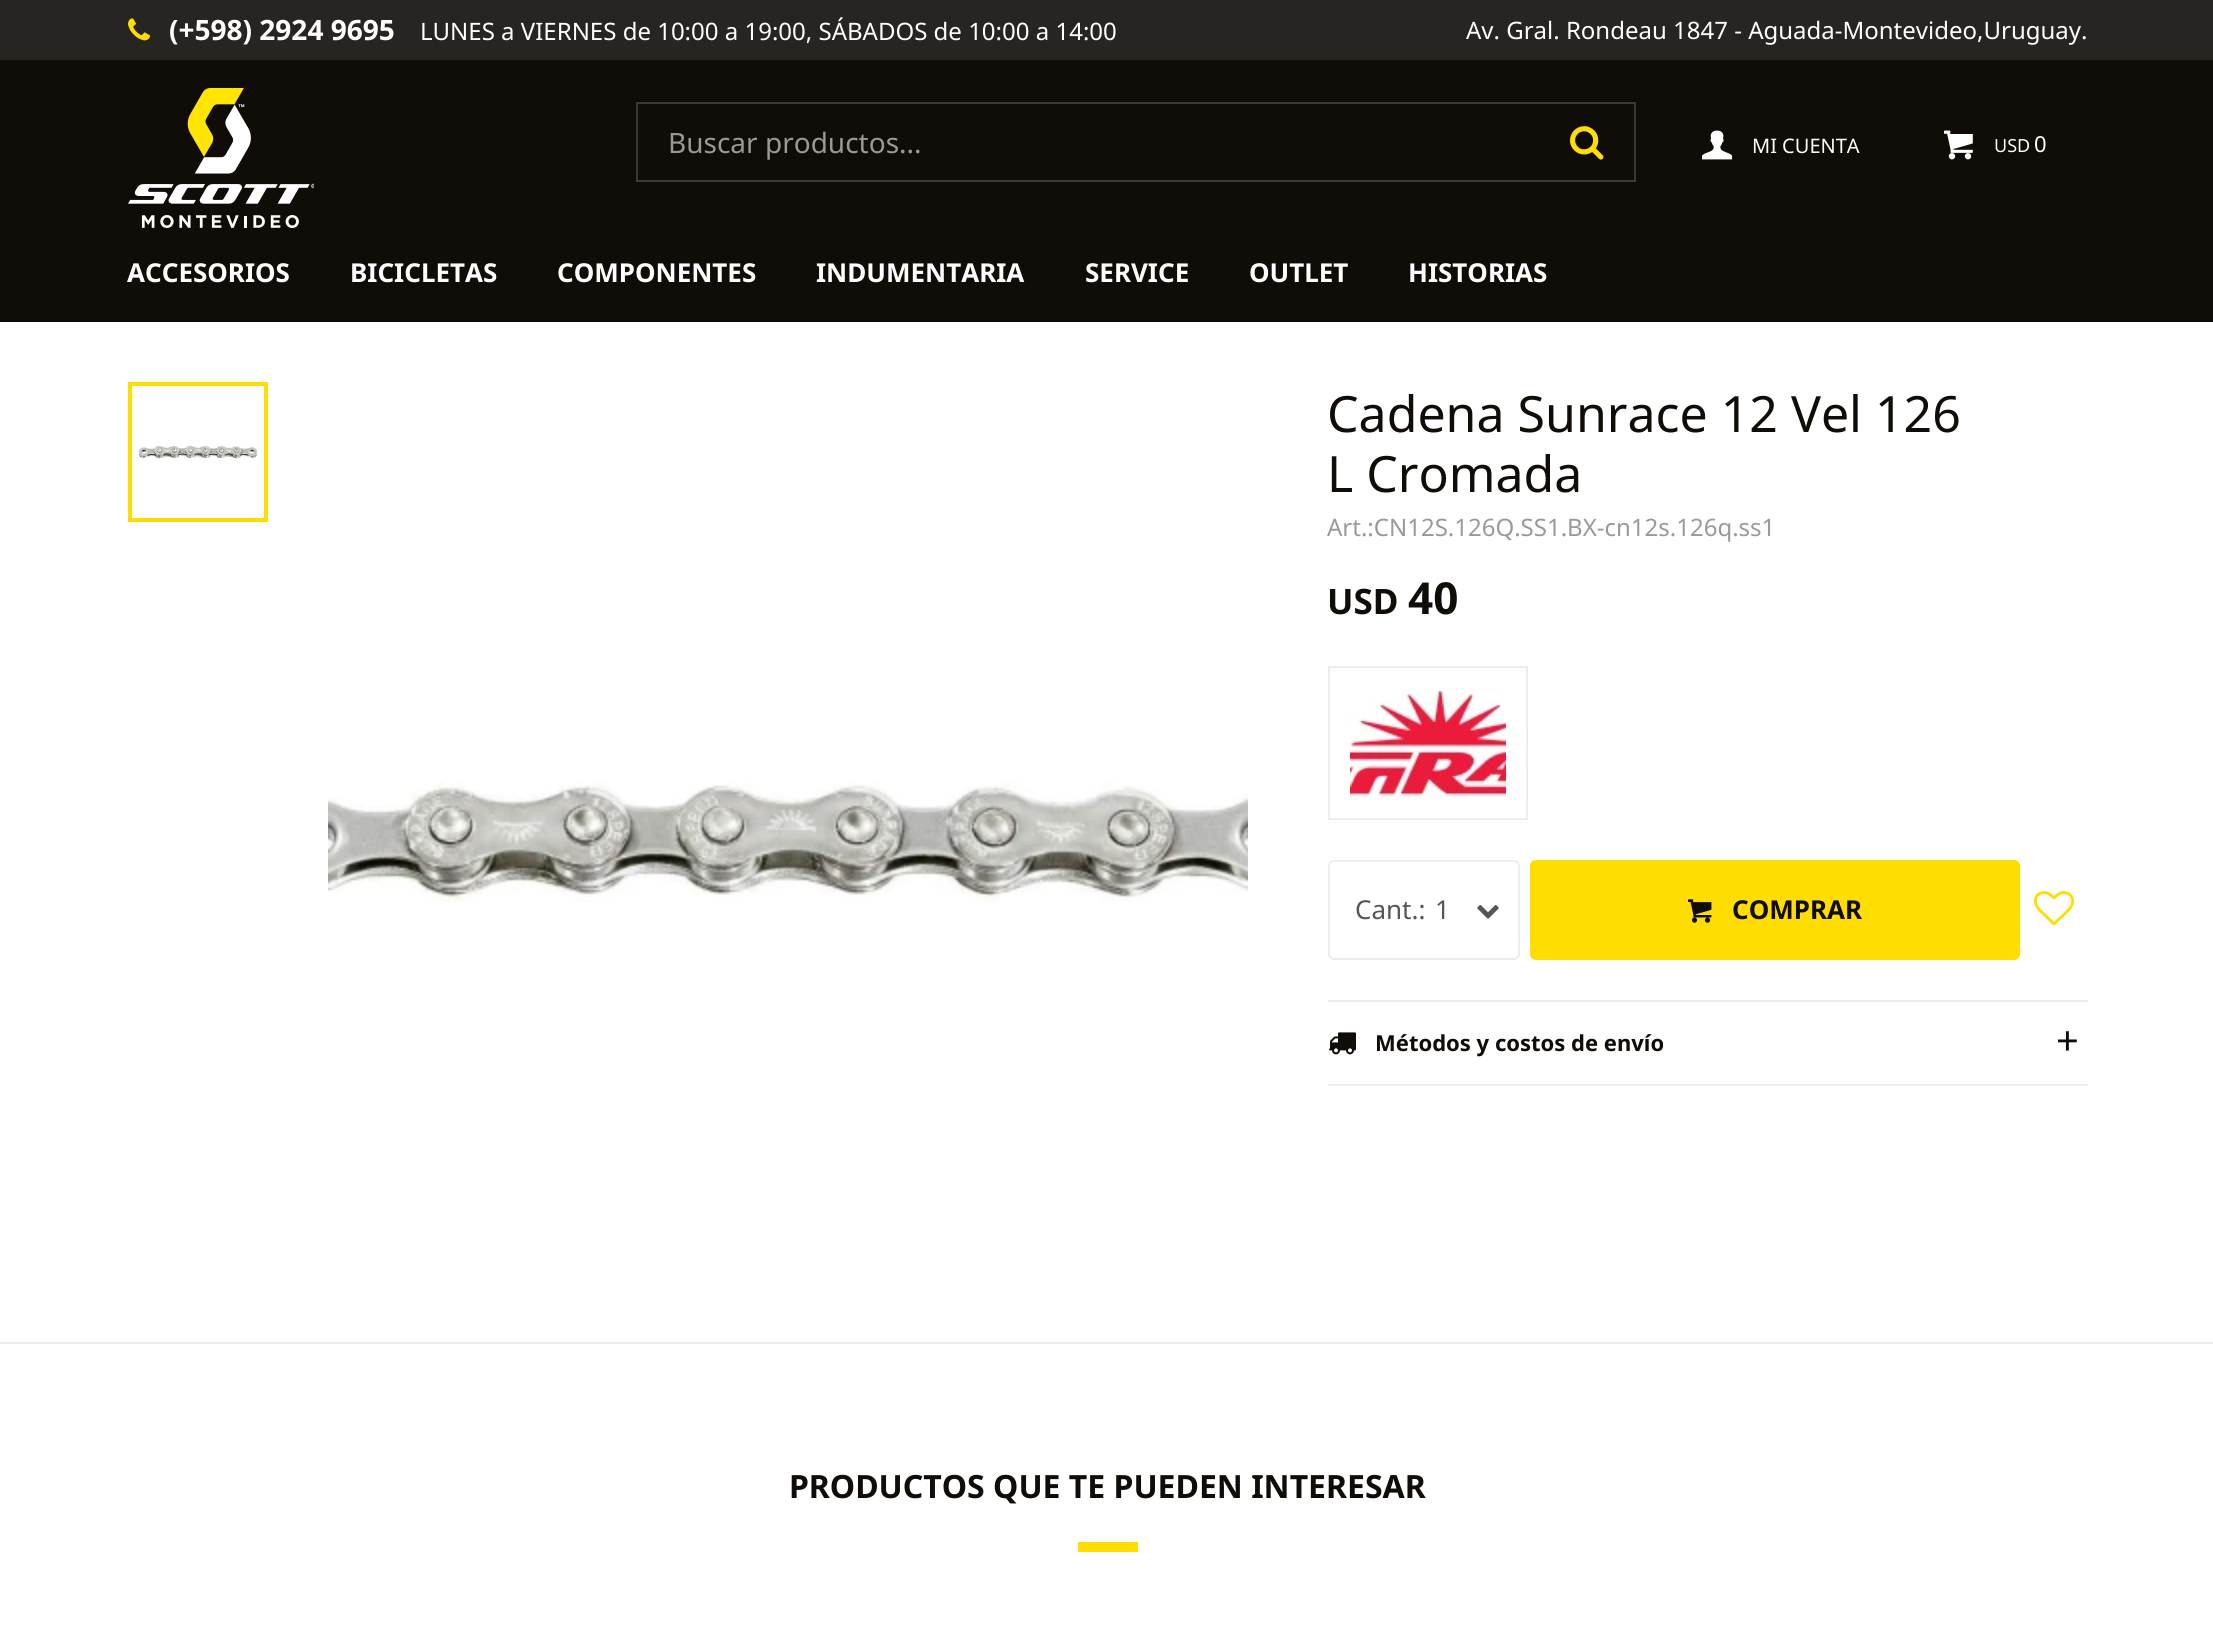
#include <cairo.h>
#include <math.h>
#include <stddef.h>


static void set_color(cairo_t *cr, unsigned color) {
    cairo_set_source_rgb(cr, (color >> 16) / 255.0, (color >> 8 & 255) / 255.0, (color & 255) / 255.0);
}

static void draw_text(cairo_t *cr, double x, double y, const char *s, const char *family, double size, int italic, int bold, unsigned color) {
    cairo_select_font_face(cr, family, italic ? CAIRO_FONT_SLANT_ITALIC : CAIRO_FONT_SLANT_NORMAL,
        bold ? CAIRO_FONT_WEIGHT_BOLD : CAIRO_FONT_WEIGHT_NORMAL);
    cairo_set_font_size(cr, size);
    set_color(cr, color);
    cairo_move_to(cr, x, y);
    cairo_show_text(cr, s);
}

static void fill_rect(cairo_t *cr, double x, double y, double w, double h, unsigned color) {
    set_color(cr, color);
    cairo_rectangle(cr, x, y, w, h);
    cairo_fill(cr);
}

static void rounded_rect(cairo_t *cr, double x, double y, double w, double h, double r) {
    cairo_new_sub_path(cr);
    cairo_arc(cr, x + w - r, y + h - r, r, 0, M_PI / 2);
    cairo_arc(cr, x + r, y + h - r, r, M_PI / 2, M_PI);
    cairo_arc(cr, x + r, y + r, r, M_PI, 1.5 * M_PI);
    cairo_arc(cr, x + w - r, y + r, r, 1.5 * M_PI, 2 * M_PI);
    cairo_close_path(cr);
}

static void draw_image(cairo_t *cr, const char *path, double x, double y, double w, double h) {
    cairo_surface_t *image = cairo_image_surface_create_from_png(path);
    cairo_save(cr);
    cairo_set_source_surface(cr, image, x, y);
    cairo_rectangle(cr, x, y, w, h);
    cairo_fill(cr);
    cairo_restore(cr);
    cairo_surface_destroy(image);
}

int main(void) {
    cairo_surface_t *surface = cairo_image_surface_create(CAIRO_FORMAT_RGB24, 2213, 1633);
    cairo_t *cr = cairo_create(surface);
    cairo_font_options_t *options = cairo_font_options_create();
    cairo_font_options_set_hint_metrics(options, CAIRO_HINT_METRICS_OFF);
    cairo_font_options_set_hint_style(options, CAIRO_HINT_STYLE_NONE);
    cairo_set_font_options(cr, options);
    cairo_set_miter_limit(cr, 4);
    set_color(cr, 0xFFFFFF);
    cairo_paint(cr);
    fill_rect(cr, 0, 60, 2213, 262, 0x100C08);
    fill_rect(cr, 0, 0, 2213, 60, 0x282421);
    draw_image(cr, "assets/img1.png", 128, 18, 22, 23);
    draw_text(cr, 169, 40, "(+598) 2924 9695", "Noto Sans", 28, 0, 1, 0xFFFFFF);
    draw_text(cr, 420, 40, "LUNES a VIERNES de 10:00 a 19:00, SÁBADOS de 10:00 a 14:00", "Noto Sans", 24, 0, 0, 0xFFFFFF);
    draw_text(cr, 1466, 39, "Av. Gral. Rondeau 1847 - Aguada-Montevideo,Uruguay.", "Noto Sans", 24, 0, 0, 0xFFFFFF);
    draw_image(cr, "assets/img2.png", 128, 88, 186, 140);
    cairo_rectangle(cr, 637, 103, 998, 78);
    set_color(cr, 0x3C3936);
    cairo_stroke(cr);
    draw_text(cr, 668, 153, "Buscar productos...", "Noto Sans", 28, 0, 0, 0x999999);
    draw_image(cr, "assets/img3.png", 1570, 126, 34, 34);
    draw_image(cr, "assets/img4.png", 1702, 130, 31, 30);
    draw_text(cr, 1752, 153, "MI CUENTA", "Noto Sans", 20, 0, 0, 0xFFFFFF);
    draw_image(cr, "assets/img5.png", 1944, 130, 29, 30);
    draw_text(cr, 1994, 152, "USD", "Noto Sans", 18, 0, 0, 0xFFFFFF);
    draw_text(cr, 2034, 152, "0", "Noto Sans", 22, 0, 0, 0xFFFFFF);
    draw_text(cr, 127, 282, "ACCESORIOS", "Noto Sans", 26, 0, 1, 0xFFFFFF);
    draw_text(cr, 350, 282, "BICICLETAS", "Noto Sans", 26, 0, 1, 0xFFFFFF);
    draw_text(cr, 557, 282, "COMPONENTES", "Noto Sans", 26, 0, 1, 0xFFFFFF);
    draw_text(cr, 816, 282, "INDUMENTARIA", "Noto Sans", 26, 0, 1, 0xFFFFFF);
    draw_text(cr, 1085, 282, "SERVICE", "Noto Sans", 26, 0, 1, 0xFFFFFF);
    draw_text(cr, 1249, 282, "OUTLET", "Noto Sans", 26, 0, 1, 0xFFFFFF);
    draw_text(cr, 1408, 282, "HISTORIAS", "Noto Sans", 26, 0, 1, 0xFFFFFF);
    draw_image(cr, "assets/img6.png", 138, 445, 120, 14);
    cairo_rectangle(cr, 130, 384, 136, 136);
    set_color(cr, 0xFFDD00);
    cairo_set_line_width(cr, 4);
    cairo_stroke(cr);
    draw_text(cr, 1327, 432, "Cadena Sunrace 12 Vel 126", "Noto Sans", 50, 0, 0, 0x100C08);
    draw_text(cr, 1327, 492, "L Cromada", "Noto Sans", 50, 0, 0, 0x100C08);
    draw_text(cr, 1327, 536, "Art.:CN12S.126Q.SS1.BX-cn12s.126q.ss1", "Noto Sans", 24, 0, 0, 0x999999);
    draw_text(cr, 1327, 614, "USD", "Noto Sans", 35, 0, 1, 0x100C08);
    draw_text(cr, 1408, 614, "40", "Noto Sans", 44, 0, 1, 0x100C08);
    cairo_rectangle(cr, 1329, 667, 198, 152);
    set_color(cr, 0xEDEDED);
    cairo_set_line_width(cr, 2);
    cairo_stroke(cr);
    draw_image(cr, "assets/img7.png", 1350, 688, 156, 110);
    draw_image(cr, "assets/img8.png", 328, 782, 920, 121);
    draw_image(cr, "assets/img9.png", 1477, 904, 22, 15);
    rounded_rect(cr, 1329, 861, 190, 98, 5);
    cairo_stroke(cr);
    draw_text(cr, 1355, 919, "Cant.:", "Noto Sans", 26, 0, 0, 0x555555);
    draw_text(cr, 1435, 919, "1", "Noto Sans", 26, 0, 0, 0x555555);
    set_color(cr, 0xFFDD00);
    rounded_rect(cr, 1530, 860, 490, 100, 6);
    cairo_fill(cr);
    draw_image(cr, "assets/img10.png", 1688, 899, 24, 24);
    draw_text(cr, 1732, 919, "COMPRAR", "Noto Sans", 26, 0, 1, 0x100C08);
    draw_image(cr, "assets/img11.png", 2034, 891, 40, 35);
    fill_rect(cr, 1328, 1000, 760, 2, 0xEDEDED);
    fill_rect(cr, 1328, 1084, 760, 2, 0xEDEDED);
    draw_image(cr, "assets/img12.png", 1329, 1032, 27, 23);
    draw_text(cr, 1375, 1051, "Métodos y costos de envío", "Noto Sans", 22, 0, 1, 0x100C08);
    draw_text(cr, 2056, 1055, "+", "Noto Sans", 40, 0, 0, 0x100C08);
    fill_rect(cr, 0, 1342, 2213, 2, 0xEDEDED);
    draw_text(cr, 789, 1498, "PRODUCTOS QUE TE PUEDEN INTERESAR", "Noto Sans", 32, 0, 1, 0x100C08);
    fill_rect(cr, 1078, 1542, 60, 10, 0xFFDD00);
    cairo_surface_write_to_png(surface, "output.png");
    cairo_font_options_destroy(options);
    cairo_destroy(cr);
    cairo_surface_destroy(surface);
    return 0;
}
